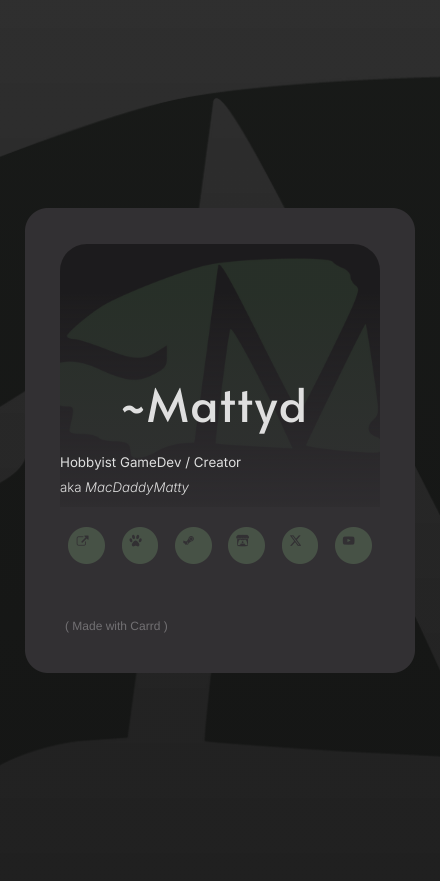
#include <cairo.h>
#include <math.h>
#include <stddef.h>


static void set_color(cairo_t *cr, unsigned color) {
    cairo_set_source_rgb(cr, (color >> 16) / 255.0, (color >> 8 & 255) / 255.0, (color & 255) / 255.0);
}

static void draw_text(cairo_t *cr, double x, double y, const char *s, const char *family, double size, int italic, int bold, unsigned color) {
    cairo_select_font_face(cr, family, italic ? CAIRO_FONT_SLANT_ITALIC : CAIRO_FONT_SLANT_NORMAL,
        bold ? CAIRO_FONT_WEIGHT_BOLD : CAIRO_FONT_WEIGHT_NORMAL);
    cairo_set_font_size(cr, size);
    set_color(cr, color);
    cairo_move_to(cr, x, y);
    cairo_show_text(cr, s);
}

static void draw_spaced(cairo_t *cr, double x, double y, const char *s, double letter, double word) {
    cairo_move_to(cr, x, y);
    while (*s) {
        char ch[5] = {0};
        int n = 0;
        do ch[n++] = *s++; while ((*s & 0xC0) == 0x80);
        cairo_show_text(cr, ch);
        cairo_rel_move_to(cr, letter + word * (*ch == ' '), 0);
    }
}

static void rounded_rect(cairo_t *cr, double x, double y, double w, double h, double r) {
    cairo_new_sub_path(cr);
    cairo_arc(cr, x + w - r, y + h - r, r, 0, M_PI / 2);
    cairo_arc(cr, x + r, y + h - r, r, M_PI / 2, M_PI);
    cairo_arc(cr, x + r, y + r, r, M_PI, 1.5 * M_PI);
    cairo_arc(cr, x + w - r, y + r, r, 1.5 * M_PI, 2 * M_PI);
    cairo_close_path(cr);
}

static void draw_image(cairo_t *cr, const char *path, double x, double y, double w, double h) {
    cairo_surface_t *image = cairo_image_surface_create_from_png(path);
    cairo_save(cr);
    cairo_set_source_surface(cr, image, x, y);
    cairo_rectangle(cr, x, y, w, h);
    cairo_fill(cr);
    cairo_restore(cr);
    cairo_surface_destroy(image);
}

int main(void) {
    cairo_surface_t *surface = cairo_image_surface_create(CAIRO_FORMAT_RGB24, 440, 881);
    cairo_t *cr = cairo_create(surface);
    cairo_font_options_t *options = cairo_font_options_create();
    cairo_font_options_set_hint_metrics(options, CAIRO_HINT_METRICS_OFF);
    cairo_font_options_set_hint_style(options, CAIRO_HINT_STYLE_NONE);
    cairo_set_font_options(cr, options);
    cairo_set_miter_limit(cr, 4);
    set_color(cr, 0xFFFFFF);
    cairo_paint(cr);
    draw_image(cr, "assets/img1.png", 0, 0, 440, 881);
    set_color(cr, 0x323033);
    rounded_rect(cr, 26, 209, 388, 463, 22);
    cairo_fill_preserve(cr);
    cairo_stroke(cr);
    draw_image(cr, "assets/img2.png", 60, 244, 320, 263);
    cairo_select_font_face(cr, "Alata", CAIRO_FONT_SLANT_NORMAL, CAIRO_FONT_WEIGHT_NORMAL);
    cairo_set_font_size(cr, 46.5);
    set_color(cr, 0xDFDFDF);
    draw_spaced(cr, 120, 422, "~Mattyd", 1.25, 0);
    draw_text(cr, 60, 467, "Hobbyist GameDev / Creator", "Inter", 13.3, 0, 0, 0xDFDFDF);
    draw_text(cr, 60, 492, "aka", "Inter Light", 13.3, 0, 0, 0xDFDFDF);
    draw_text(cr, 85, 492, "MacDaddyMatty", "Inter Light", 13.3, 1, 0, 0xDFDFDF);
    set_color(cr, 0x475246);
    cairo_new_path(cr);
    cairo_arc(cr, 86.5, 545.5, 18.5, 0, 2 * M_PI);
    cairo_fill(cr);
    draw_image(cr, "assets/img3.png", 76, 535, 13, 11);
    rounded_rect(cr, 122, 527, 36, 37, 18);
    cairo_fill(cr);
    draw_image(cr, "assets/img4.png", 129, 534, 13, 13);
    cairo_arc(cr, 193.5, 545.5, 18.5, 0, 2 * M_PI);
    cairo_fill(cr);
    draw_image(cr, "assets/img5.png", 183, 536, 11, 9);
    cairo_arc(cr, 246.5, 545.5, 18.5, 0, 2 * M_PI);
    cairo_fill(cr);
    draw_image(cr, "assets/img6.png", 236, 534, 13, 13);
    rounded_rect(cr, 282, 527, 36, 37, 18);
    cairo_fill(cr);
    draw_image(cr, "assets/img7.png", 290, 535, 11, 11);
    cairo_arc(cr, 353.5, 545.5, 18.5, 0, 2 * M_PI);
    cairo_fill(cr);
    draw_image(cr, "assets/img8.png", 342, 536, 13, 9);
    draw_text(cr, 65, 630, "( Made with Carrd )", "Liberation Sans", 12, 0, 0, 0x716F72);
    cairo_surface_write_to_png(surface, "output.png");
    cairo_font_options_destroy(options);
    cairo_destroy(cr);
    cairo_surface_destroy(surface);
    return 0;
}
